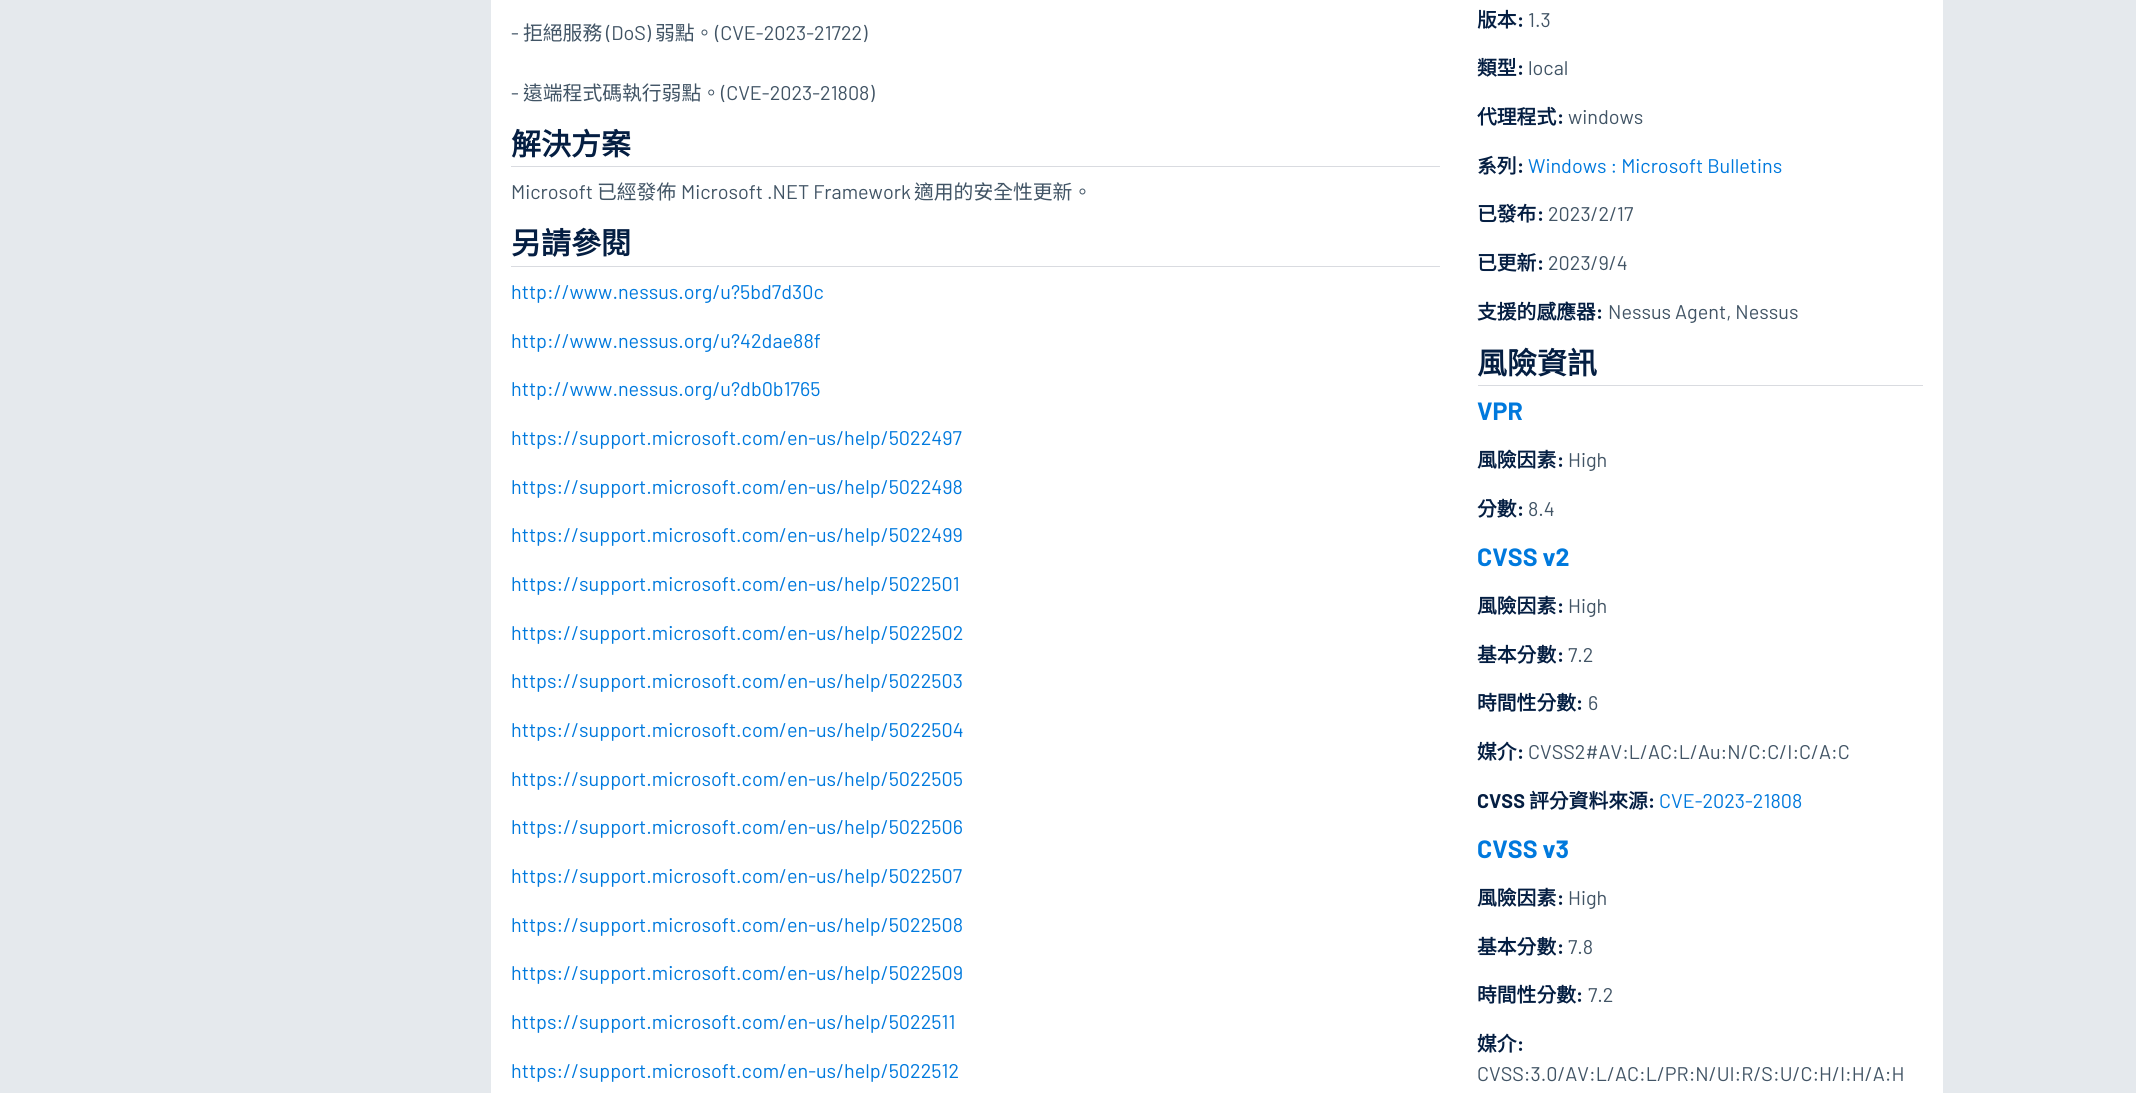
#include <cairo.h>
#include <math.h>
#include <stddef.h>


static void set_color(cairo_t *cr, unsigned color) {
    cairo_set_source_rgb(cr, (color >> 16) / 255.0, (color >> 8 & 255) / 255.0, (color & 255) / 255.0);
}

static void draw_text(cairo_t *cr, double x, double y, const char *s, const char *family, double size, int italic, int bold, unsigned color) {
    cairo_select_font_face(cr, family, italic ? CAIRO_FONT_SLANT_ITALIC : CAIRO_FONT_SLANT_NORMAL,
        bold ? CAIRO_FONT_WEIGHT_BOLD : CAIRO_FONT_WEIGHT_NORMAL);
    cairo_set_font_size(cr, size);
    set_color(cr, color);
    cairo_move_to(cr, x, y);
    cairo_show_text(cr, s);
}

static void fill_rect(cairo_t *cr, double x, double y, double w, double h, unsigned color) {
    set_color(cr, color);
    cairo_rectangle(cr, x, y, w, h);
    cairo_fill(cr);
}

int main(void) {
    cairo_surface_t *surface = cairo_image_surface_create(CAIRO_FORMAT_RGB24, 2136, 1093);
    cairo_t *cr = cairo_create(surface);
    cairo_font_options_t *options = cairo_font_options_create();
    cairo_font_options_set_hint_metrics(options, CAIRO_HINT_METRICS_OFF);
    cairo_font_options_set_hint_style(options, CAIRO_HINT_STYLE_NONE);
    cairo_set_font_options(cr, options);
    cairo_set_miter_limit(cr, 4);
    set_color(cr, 0xE5E9ED);
    cairo_paint(cr);
    fill_rect(cr, 491, 0, 1452, 1093, 0xFFFFFF);
    draw_text(cr, 511, 40, "-", "Barlow", 19.8, 0, 0, 0x415465);
    draw_text(cr, 523, 40, "拒絕服務", "Noto Sans CJK TC", 19.8, 0, 0, 0x415465);
    draw_text(cr, 606, 40, "(DoS)", "Barlow", 19.8, 0, 0, 0x415465);
    draw_text(cr, 655, 40, "弱點。", "Noto Sans CJK TC", 19.8, 0, 0, 0x415465);
    draw_text(cr, 715, 40, "(CVE-2023-21722)", "Barlow", 19.8, 0, 0, 0x415465);
    draw_text(cr, 511, 100, "-", "Barlow", 19.8, 0, 0, 0x415465);
    draw_text(cr, 523, 100, "遠端程式碼執行弱點。", "Noto Sans CJK TC", 19.8, 0, 0, 0x415465);
    draw_text(cr, 721, 100, "(CVE-2023-21808)", "Barlow", 19.8, 0, 0, 0x415465);
    fill_rect(cr, 511, 166, 929, 1, 0xD9DBE0);
    draw_text(cr, 511, 155, "解決方案", "Noto Sans CJK TC", 30, 0, 1, 0x041E42);
    draw_text(cr, 511, 199, "Microsoft", "Barlow", 19.8, 0, 0, 0x415465);
    draw_text(cr, 597, 199, "已經發佈", "Noto Sans CJK TC", 19.8, 0, 0, 0x415465);
    draw_text(cr, 681, 199, "Microsoft .NET Framework", "Barlow", 19.8, 0, 0, 0x415465);
    draw_text(cr, 914, 199, "適用的安全性更新。", "Noto Sans CJK TC", 19.8, 0, 0, 0x415465);
    fill_rect(cr, 511, 266, 929, 1, 0xD9DBE0);
    draw_text(cr, 511, 254, "另請參閱", "Noto Sans CJK TC", 30, 0, 1, 0x041E42);
    draw_text(cr, 511, 299, "http://www.nessus.org/u?5bd7d30c", "Barlow", 19.8, 0, 0, 0x0079DD);
    draw_text(cr, 511, 348, "http://www.nessus.org/u?42dae88f", "Barlow", 19.8, 0, 0, 0x0079DD);
    draw_text(cr, 511, 396, "http://www.nessus.org/u?db0b1765", "Barlow", 19.8, 0, 0, 0x0079DD);
    draw_text(cr, 511, 445, "https://support.microsoft.com/en-us/help/5022497", "Barlow", 19.8, 0, 0, 0x0079DD);
    draw_text(cr, 511, 494, "https://support.microsoft.com/en-us/help/5022498", "Barlow", 19.8, 0, 0, 0x0079DD);
    draw_text(cr, 511, 542, "https://support.microsoft.com/en-us/help/5022499", "Barlow", 19.8, 0, 0, 0x0079DD);
    draw_text(cr, 511, 591, "https://support.microsoft.com/en-us/help/5022501", "Barlow", 19.8, 0, 0, 0x0079DD);
    draw_text(cr, 511, 640, "https://support.microsoft.com/en-us/help/5022502", "Barlow", 19.8, 0, 0, 0x0079DD);
    draw_text(cr, 511, 688, "https://support.microsoft.com/en-us/help/5022503", "Barlow", 19.8, 0, 0, 0x0079DD);
    draw_text(cr, 511, 737, "https://support.microsoft.com/en-us/help/5022504", "Barlow", 19.8, 0, 0, 0x0079DD);
    draw_text(cr, 511, 786, "https://support.microsoft.com/en-us/help/5022505", "Barlow", 19.8, 0, 0, 0x0079DD);
    draw_text(cr, 511, 834, "https://support.microsoft.com/en-us/help/5022506", "Barlow", 19.8, 0, 0, 0x0079DD);
    draw_text(cr, 511, 883, "https://support.microsoft.com/en-us/help/5022507", "Barlow", 19.8, 0, 0, 0x0079DD);
    draw_text(cr, 511, 932, "https://support.microsoft.com/en-us/help/5022508", "Barlow", 19.8, 0, 0, 0x0079DD);
    draw_text(cr, 511, 980, "https://support.microsoft.com/en-us/help/5022509", "Barlow", 19.8, 0, 0, 0x0079DD);
    draw_text(cr, 511, 1029, "https://support.microsoft.com/en-us/help/5022511", "Barlow", 19.8, 0, 0, 0x0079DD);
    draw_text(cr, 511, 1078, "https://support.microsoft.com/en-us/help/5022512", "Barlow", 19.8, 0, 0, 0x0079DD);
    draw_text(cr, 1477, 27, "版本", "Noto Sans CJK TC", 19.8, 0, 1, 0x041E42);
    draw_text(cr, 1517, 27, ":", "Barlow", 19.8, 0, 1, 0x041E42);
    draw_text(cr, 1528, 27, "1.3", "Barlow", 19.8, 0, 0, 0x415465);
    draw_text(cr, 1477, 75, "類型", "Noto Sans CJK TC", 19.8, 0, 1, 0x041E42);
    draw_text(cr, 1517, 75, ":", "Barlow", 19.8, 0, 1, 0x041E42);
    draw_text(cr, 1528, 75, "local", "Barlow", 19.8, 0, 0, 0x415465);
    draw_text(cr, 1477, 124, "代理程式", "Noto Sans CJK TC", 19.8, 0, 1, 0x041E42);
    draw_text(cr, 1557, 124, ":", "Barlow", 19.8, 0, 1, 0x041E42);
    draw_text(cr, 1568, 124, "windows", "Barlow", 19.8, 0, 0, 0x415465);
    draw_text(cr, 1477, 173, "系列", "Noto Sans CJK TC", 19.8, 0, 1, 0x041E42);
    draw_text(cr, 1517, 173, ":", "Barlow", 19.8, 0, 1, 0x041E42);
    draw_text(cr, 1528, 173, "Windows : Microsoft Bulletins", "Barlow", 19.8, 0, 0, 0x0079DD);
    draw_text(cr, 1477, 221, "已發布", "Noto Sans CJK TC", 19.8, 0, 1, 0x041E42);
    draw_text(cr, 1537, 221, ":", "Barlow", 19.8, 0, 1, 0x041E42);
    draw_text(cr, 1548, 221, "2023/2/17", "Barlow", 19.8, 0, 0, 0x415465);
    draw_text(cr, 1477, 270, "已更新", "Noto Sans CJK TC", 19.8, 0, 1, 0x041E42);
    draw_text(cr, 1537, 270, ":", "Barlow", 19.8, 0, 1, 0x041E42);
    draw_text(cr, 1548, 270, "2023/9/4", "Barlow", 19.8, 0, 0, 0x415465);
    draw_text(cr, 1477, 319, "支援的感應器", "Noto Sans CJK TC", 19.8, 0, 1, 0x041E42);
    draw_text(cr, 1596, 319, ":", "Barlow", 19.8, 0, 1, 0x041E42);
    draw_text(cr, 1608, 319, "Nessus Agent, Nessus", "Barlow", 19.8, 0, 0, 0x415465);
    fill_rect(cr, 1478, 385, 445, 1, 0xD9DBE0);
    draw_text(cr, 1477, 374, "風險資訊", "Noto Sans CJK TC", 30, 0, 1, 0x041E42);
    draw_text(cr, 1477, 420, "VPR", "Barlow", 25, 0, 1, 0x0079DD);
    draw_text(cr, 1477, 467, "風險因素", "Noto Sans CJK TC", 19.8, 0, 1, 0x041E42);
    draw_text(cr, 1557, 467, ":", "Barlow", 19.8, 0, 1, 0x041E42);
    draw_text(cr, 1568, 467, "High", "Barlow", 19.8, 0, 0, 0x415465);
    draw_text(cr, 1477, 516, "分數", "Noto Sans CJK TC", 19.8, 0, 1, 0x041E42);
    draw_text(cr, 1517, 516, ":", "Barlow", 19.8, 0, 1, 0x041E42);
    draw_text(cr, 1528, 516, "8.4", "Barlow", 19.8, 0, 0, 0x415465);
    draw_text(cr, 1477, 566, "CVSS v2", "Barlow", 25, 0, 1, 0x0079DD);
    draw_text(cr, 1477, 613, "風險因素", "Noto Sans CJK TC", 19.8, 0, 1, 0x041E42);
    draw_text(cr, 1557, 613, ":", "Barlow", 19.8, 0, 1, 0x041E42);
    draw_text(cr, 1568, 613, "High", "Barlow", 19.8, 0, 0, 0x415465);
    draw_text(cr, 1477, 662, "基本分數", "Noto Sans CJK TC", 19.8, 0, 1, 0x041E42);
    draw_text(cr, 1557, 662, ":", "Barlow", 19.8, 0, 1, 0x041E42);
    draw_text(cr, 1568, 662, "7.2", "Barlow", 19.8, 0, 0, 0x415465);
    draw_text(cr, 1477, 710, "時間性分數", "Noto Sans CJK TC", 19.8, 0, 1, 0x041E42);
    draw_text(cr, 1576, 710, ":", "Barlow", 19.8, 0, 1, 0x041E42);
    draw_text(cr, 1588, 710, "6", "Barlow", 19.8, 0, 0, 0x415465);
    draw_text(cr, 1477, 759, "媒介", "Noto Sans CJK TC", 19.8, 0, 1, 0x041E42);
    draw_text(cr, 1517, 759, ":", "Barlow", 19.8, 0, 1, 0x041E42);
    draw_text(cr, 1528, 759, "CVSS2#AV:L/AC:L/Au:N/C:C/I:C/A:C", "Barlow", 19.8, 0, 0, 0x415465);
    draw_text(cr, 1477, 808, "CVSS", "Barlow", 19.8, 0, 1, 0x041E42);
    draw_text(cr, 1529, 808, "評分資料來源", "Noto Sans CJK TC", 19.8, 0, 1, 0x041E42);
    draw_text(cr, 1648, 808, ":", "Barlow", 19.8, 0, 1, 0x041E42);
    draw_text(cr, 1659, 808, "CVE-2023-21808", "Barlow", 19.8, 0, 0, 0x0079DD);
    draw_text(cr, 1477, 858, "CVSS v3", "Barlow", 25, 0, 1, 0x0079DD);
    draw_text(cr, 1477, 905, "風險因素", "Noto Sans CJK TC", 19.8, 0, 1, 0x041E42);
    draw_text(cr, 1557, 905, ":", "Barlow", 19.8, 0, 1, 0x041E42);
    draw_text(cr, 1568, 905, "High", "Barlow", 19.8, 0, 0, 0x415465);
    draw_text(cr, 1477, 954, "基本分數", "Noto Sans CJK TC", 19.8, 0, 1, 0x041E42);
    draw_text(cr, 1557, 954, ":", "Barlow", 19.8, 0, 1, 0x041E42);
    draw_text(cr, 1568, 954, "7.8", "Barlow", 19.8, 0, 0, 0x415465);
    draw_text(cr, 1477, 1002, "時間性分數", "Noto Sans CJK TC", 19.8, 0, 1, 0x041E42);
    draw_text(cr, 1576, 1002, ":", "Barlow", 19.8, 0, 1, 0x041E42);
    draw_text(cr, 1588, 1002, "7.2", "Barlow", 19.8, 0, 0, 0x415465);
    draw_text(cr, 1477, 1051, "媒介", "Noto Sans CJK TC", 19.8, 0, 1, 0x041E42);
    draw_text(cr, 1517, 1051, ":", "Barlow", 19.8, 0, 1, 0x041E42);
    draw_text(cr, 1477, 1081, "CVSS:3.0/AV:L/AC:L/PR:N/UI:R/S:U/C:H/I:H/A:H", "Barlow", 19.8, 0, 0, 0x415465);
    cairo_surface_write_to_png(surface, "output.png");
    cairo_font_options_destroy(options);
    cairo_destroy(cr);
    cairo_surface_destroy(surface);
    return 0;
}
